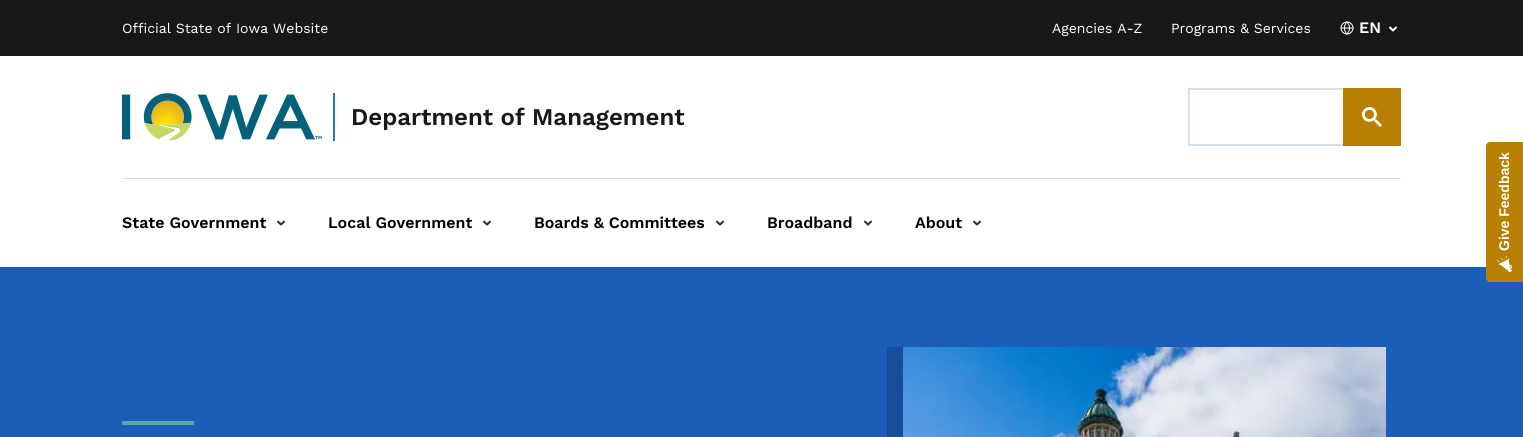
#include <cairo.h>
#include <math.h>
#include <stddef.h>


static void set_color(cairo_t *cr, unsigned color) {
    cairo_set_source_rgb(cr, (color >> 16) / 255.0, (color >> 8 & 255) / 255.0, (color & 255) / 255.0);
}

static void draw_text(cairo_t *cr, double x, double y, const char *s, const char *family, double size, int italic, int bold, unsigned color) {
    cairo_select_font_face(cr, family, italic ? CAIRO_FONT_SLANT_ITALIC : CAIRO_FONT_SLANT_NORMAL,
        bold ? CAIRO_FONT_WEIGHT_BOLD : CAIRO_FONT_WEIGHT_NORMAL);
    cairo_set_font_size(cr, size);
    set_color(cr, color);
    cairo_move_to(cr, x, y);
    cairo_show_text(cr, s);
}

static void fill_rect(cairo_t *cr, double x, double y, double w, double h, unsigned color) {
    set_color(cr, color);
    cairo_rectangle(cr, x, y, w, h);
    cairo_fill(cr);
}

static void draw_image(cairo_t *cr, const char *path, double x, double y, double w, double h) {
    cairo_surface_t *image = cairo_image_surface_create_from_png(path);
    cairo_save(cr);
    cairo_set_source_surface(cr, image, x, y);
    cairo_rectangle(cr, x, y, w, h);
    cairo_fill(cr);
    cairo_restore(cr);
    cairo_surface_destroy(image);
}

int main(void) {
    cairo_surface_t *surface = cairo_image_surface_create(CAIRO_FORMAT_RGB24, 1523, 437);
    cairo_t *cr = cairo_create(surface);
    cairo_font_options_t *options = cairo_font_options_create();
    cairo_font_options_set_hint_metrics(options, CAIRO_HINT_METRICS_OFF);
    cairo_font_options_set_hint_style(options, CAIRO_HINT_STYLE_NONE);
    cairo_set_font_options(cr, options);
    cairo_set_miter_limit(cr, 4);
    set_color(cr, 0xFFFFFF);
    cairo_paint(cr);
    fill_rect(cr, 0, 0, 1523, 56, 0x171818);
    draw_text(cr, 122, 33, "Official State of Iowa Website", "Work Sans", 14, 0, 0, 0xFFFFFF);
    draw_text(cr, 1052, 33, "Agencies A-Z", "Work Sans", 14, 0, 0, 0xFFFFFF);
    draw_text(cr, 1171, 33, "Programs & Services", "Work Sans", 14, 0, 0, 0xFFFFFF);
    draw_image(cr, "assets/img1.png", 1340, 21, 14, 14);
    draw_text(cr, 1359, 33, "EN", "Work Sans SemiBold", 16, 0, 0, 0xFFFFFF);
    draw_image(cr, "assets/img2.png", 1389, 26, 8, 6);
    fill_rect(cr, 122, 178, 1279, 1, 0xD3DFEE);
    draw_image(cr, "assets/img3.png", 122, 93, 200, 48);
    fill_rect(cr, 333, 93, 2, 48, 0x2D7B90);
    draw_text(cr, 351, 125, "Department of Management", "Work Sans SemiBold", 24, 0, 0, 0x171818);
    fill_rect(cr, 1188, 88, 155, 2, 0xD3DFEE);
    fill_rect(cr, 1188, 144, 155, 2, 0xD3DFEE);
    fill_rect(cr, 1188, 88, 2, 58, 0xD3DFEE);
    fill_rect(cr, 1343, 88, 58, 58, 0xB87F00);
    draw_image(cr, "assets/img4.png", 1362, 107, 20, 20);
    draw_text(cr, 122, 228, "State Government", "Work Sans SemiBold", 16, 0, 0, 0x000000);
    draw_image(cr, "assets/img5.png", 277, 220, 8, 6);
    draw_text(cr, 328, 228, "Local Government", "Work Sans SemiBold", 16, 0, 0, 0x000000);
    draw_image(cr, "assets/img5.png", 483, 220, 8, 6);
    draw_text(cr, 534, 228, "Boards & Committees", "Work Sans SemiBold", 16, 0, 0, 0x000000);
    draw_image(cr, "assets/img5.png", 716, 220, 8, 6);
    draw_text(cr, 767, 228, "Broadband", "Work Sans SemiBold", 16, 0, 0, 0x000000);
    draw_image(cr, "assets/img5.png", 864, 220, 8, 6);
    draw_text(cr, 915, 228, "About", "Work Sans SemiBold", 16, 0, 0, 0x000000);
    draw_image(cr, "assets/img5.png", 973, 220, 8, 6);
    fill_rect(cr, 0, 267, 1523, 170, 0x1C5DBA);
    fill_rect(cr, 122, 421, 72, 4, 0x56AE9E);
    fill_rect(cr, 887, 347, 16, 90, 0x174E9B);
    draw_image(cr, "assets/img6.png", 903, 347, 483, 90);
    set_color(cr, 0xB87F00);
    cairo_new_path(cr);
    cairo_move_to(cr, 1523, 282);
    cairo_line_to(cr, 1490, 282);
    cairo_curve_to(cr, 1488, 282, 1486, 280, 1486, 278);
    cairo_line_to(cr, 1486, 146);
    cairo_curve_to(cr, 1486, 144, 1488, 142, 1490, 142);
    cairo_line_to(cr, 1523, 142);
    cairo_close_path(cr);
    cairo_fill(cr);
    cairo_save(cr);
    cairo_translate(cr, 1509, 251);
    cairo_rotate(cr, -90 * M_PI / 180);
    draw_text(cr, 0, 0, "Give Feedback", "Liberation Sans", 14, 0, 1, 0xFFFFFF);
    cairo_restore(cr);
    draw_image(cr, "assets/img7.png", 1496, 255, 17, 18);
    cairo_surface_write_to_png(surface, "output.png");
    cairo_font_options_destroy(options);
    cairo_destroy(cr);
    cairo_surface_destroy(surface);
    return 0;
}
